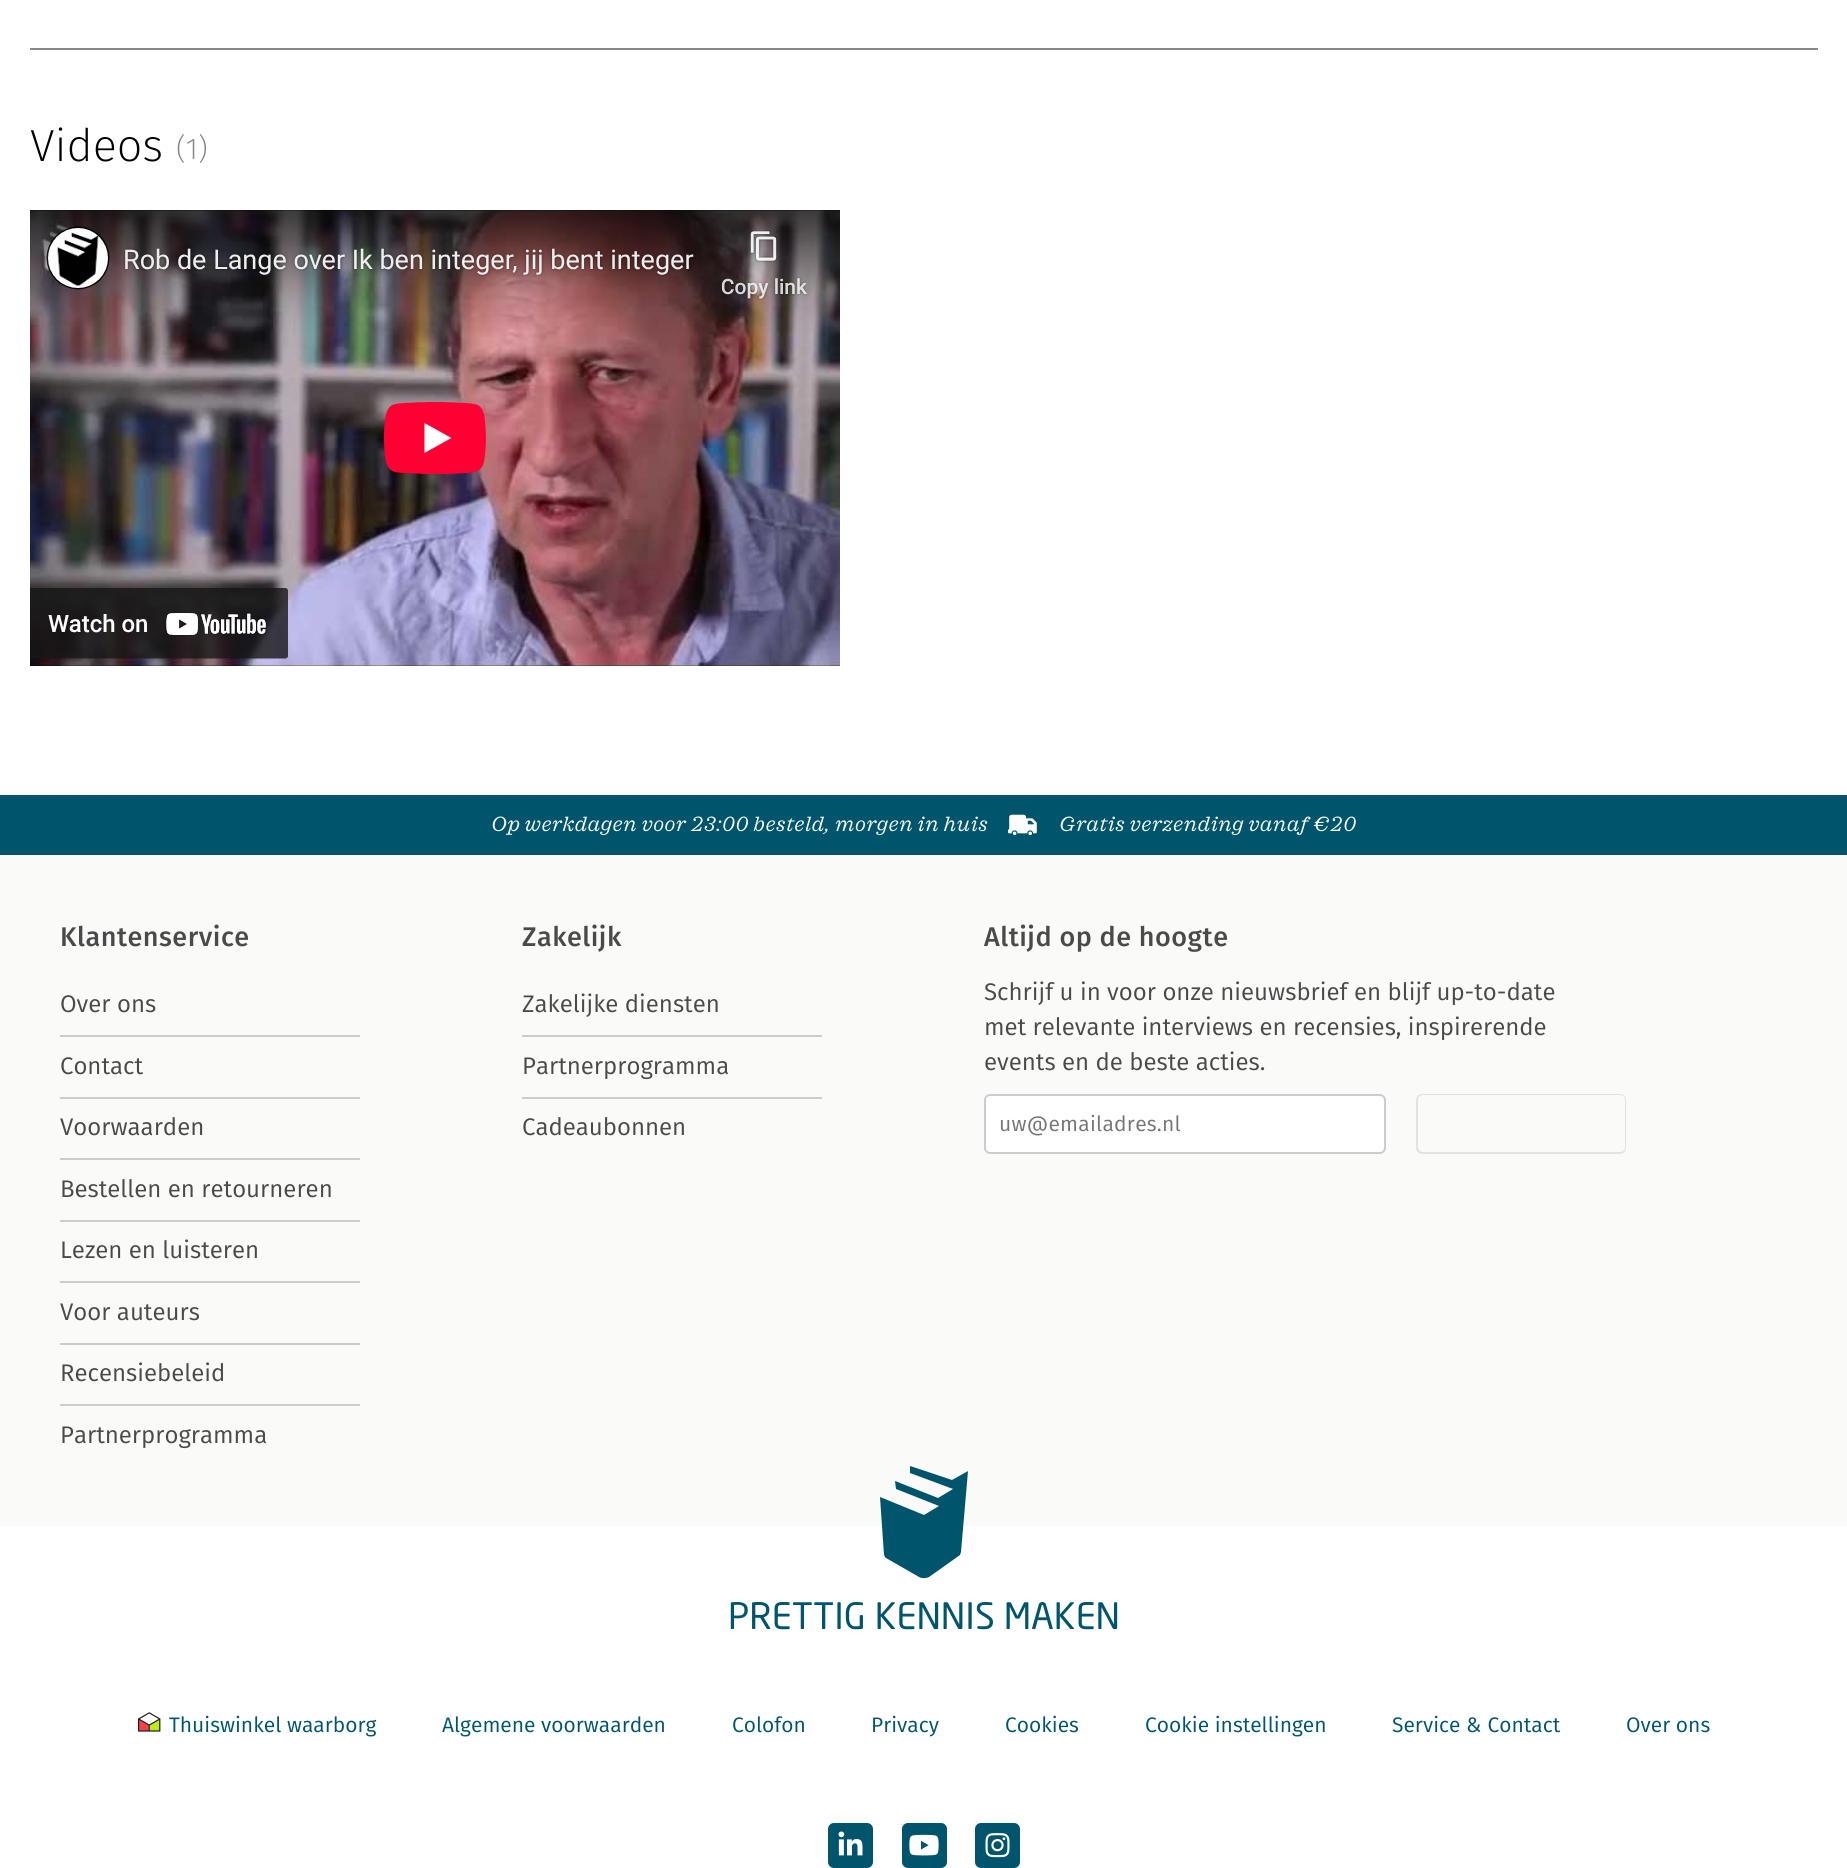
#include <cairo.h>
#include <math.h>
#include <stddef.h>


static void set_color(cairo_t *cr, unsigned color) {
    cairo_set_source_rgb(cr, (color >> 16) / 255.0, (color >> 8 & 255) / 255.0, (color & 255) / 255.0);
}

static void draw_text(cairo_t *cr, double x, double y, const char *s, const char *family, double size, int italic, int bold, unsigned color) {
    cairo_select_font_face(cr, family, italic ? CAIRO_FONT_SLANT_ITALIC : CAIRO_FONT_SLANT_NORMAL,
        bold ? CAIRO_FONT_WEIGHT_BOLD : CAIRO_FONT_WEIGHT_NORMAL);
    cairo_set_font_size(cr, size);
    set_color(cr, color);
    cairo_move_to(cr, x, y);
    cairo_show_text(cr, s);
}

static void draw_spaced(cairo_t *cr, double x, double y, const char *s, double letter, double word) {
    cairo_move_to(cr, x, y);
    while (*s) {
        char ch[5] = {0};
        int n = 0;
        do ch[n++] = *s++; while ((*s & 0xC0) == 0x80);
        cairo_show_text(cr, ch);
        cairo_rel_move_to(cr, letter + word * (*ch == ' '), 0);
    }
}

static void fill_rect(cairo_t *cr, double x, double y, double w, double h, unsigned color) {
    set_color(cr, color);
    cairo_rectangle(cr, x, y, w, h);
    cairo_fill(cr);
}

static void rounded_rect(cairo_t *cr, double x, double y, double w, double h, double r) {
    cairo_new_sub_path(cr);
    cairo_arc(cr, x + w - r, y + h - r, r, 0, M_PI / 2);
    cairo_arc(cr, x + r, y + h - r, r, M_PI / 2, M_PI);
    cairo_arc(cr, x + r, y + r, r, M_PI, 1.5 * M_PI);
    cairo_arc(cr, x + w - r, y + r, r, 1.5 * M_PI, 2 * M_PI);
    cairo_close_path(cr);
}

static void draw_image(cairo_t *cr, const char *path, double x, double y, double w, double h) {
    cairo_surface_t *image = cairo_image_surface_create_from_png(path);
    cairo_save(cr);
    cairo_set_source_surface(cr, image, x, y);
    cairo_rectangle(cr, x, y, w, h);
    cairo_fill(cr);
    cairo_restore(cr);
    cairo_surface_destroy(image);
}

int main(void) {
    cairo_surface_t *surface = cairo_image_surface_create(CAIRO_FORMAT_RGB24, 1847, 1868);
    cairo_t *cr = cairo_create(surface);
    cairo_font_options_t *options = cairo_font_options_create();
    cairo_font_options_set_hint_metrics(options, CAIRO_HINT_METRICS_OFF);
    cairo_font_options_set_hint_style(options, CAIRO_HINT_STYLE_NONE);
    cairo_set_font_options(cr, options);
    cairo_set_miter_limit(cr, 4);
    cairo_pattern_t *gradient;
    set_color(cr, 0xFFFFFF);
    cairo_paint(cr);
    fill_rect(cr, 30, 48, 1788, 2, 0x888888);
    draw_text(cr, 30, 161, "Videos", "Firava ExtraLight", 45, 0, 0, 0x000000);
    draw_text(cr, 176, 159, "(1)", "Firava ExtraLight", 30, 0, 0, 0x888888);
    draw_image(cr, "assets/img1.png", 30, 210, 810, 456);
    fill_rect(cr, 0, 795, 1847, 60, 0x00556C);
    cairo_select_font_face(cr, "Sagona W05", CAIRO_FONT_SLANT_ITALIC, CAIRO_FONT_WEIGHT_NORMAL);
    cairo_set_font_size(cr, 21);
    set_color(cr, 0xFFFFFF);
    draw_spaced(cr, 491, 831, "Op werkdagen voor 23:00 besteld, morgen in huis", 0.65, 0);
    draw_image(cr, "assets/img2.png", 1008, 814, 29, 22);
    draw_spaced(cr, 1059, 831, "Gratis verzending vanaf €20", 0.65, 0);
    fill_rect(cr, 0, 855, 1847, 671, 0xFAFAF8);
    cairo_select_font_face(cr, "Firava Medium", CAIRO_FONT_SLANT_NORMAL, CAIRO_FONT_WEIGHT_NORMAL);
    cairo_set_font_size(cr, 27);
    set_color(cr, 0x4A4A4A);
    draw_spaced(cr, 60, 946, "Klantenservice", 0.5, 0);
    fill_rect(cr, 60, 1035, 300, 2, 0xCCCCCC);
    draw_text(cr, 60, 1012, "Over ons", "Firava", 24, 0, 0, 0x4A4A4A);
    fill_rect(cr, 60, 1097, 300, 2, 0xCCCCCC);
    draw_text(cr, 60, 1074, "Contact", "Firava", 24, 0, 0, 0x4A4A4A);
    fill_rect(cr, 60, 1158, 300, 2, 0xCCCCCC);
    draw_text(cr, 60, 1135, "Voorwaarden", "Firava", 24, 0, 0, 0x4A4A4A);
    fill_rect(cr, 60, 1220, 300, 2, 0xCCCCCC);
    draw_text(cr, 60, 1197, "Bestellen en retourneren", "Firava", 24, 0, 0, 0x4A4A4A);
    fill_rect(cr, 60, 1281, 300, 2, 0xCCCCCC);
    draw_text(cr, 60, 1258, "Lezen en luisteren", "Firava", 24, 0, 0, 0x4A4A4A);
    fill_rect(cr, 60, 1343, 300, 2, 0xCCCCCC);
    draw_text(cr, 60, 1320, "Voor auteurs", "Firava", 24, 0, 0, 0x4A4A4A);
    fill_rect(cr, 60, 1404, 300, 2, 0xCCCCCC);
    draw_text(cr, 60, 1381, "Recensiebeleid", "Firava", 24, 0, 0, 0x4A4A4A);
    draw_text(cr, 60, 1443, "Partnerprogramma", "Firava", 24, 0, 0, 0x4A4A4A);
    cairo_select_font_face(cr, "Firava Medium", CAIRO_FONT_SLANT_NORMAL, CAIRO_FONT_WEIGHT_NORMAL);
    cairo_set_font_size(cr, 27);
    draw_spaced(cr, 522, 946, "Zakelijk", 0.5, 0);
    fill_rect(cr, 522, 1035, 300, 2, 0xCCCCCC);
    draw_text(cr, 522, 1012, "Zakelijke diensten", "Firava", 24, 0, 0, 0x4A4A4A);
    fill_rect(cr, 522, 1097, 300, 2, 0xCCCCCC);
    draw_text(cr, 522, 1074, "Partnerprogramma", "Firava", 24, 0, 0, 0x4A4A4A);
    draw_text(cr, 522, 1135, "Cadeaubonnen", "Firava", 24, 0, 0, 0x4A4A4A);
    cairo_select_font_face(cr, "Firava Medium", CAIRO_FONT_SLANT_NORMAL, CAIRO_FONT_WEIGHT_NORMAL);
    cairo_set_font_size(cr, 27);
    draw_spaced(cr, 984, 946, "Altijd op de hoogte", 0.5, 0);
    draw_text(cr, 984, 1000, "Schrijf u in voor onze nieuwsbrief en blijf up-to-date", "Firava", 24, 0, 0, 0x4A4A4A);
    draw_text(cr, 984, 1035, "met relevante interviews en recensies, inspirerende", "Firava", 24, 0, 0, 0x4A4A4A);
    draw_text(cr, 984, 1070, "events en de beste acties.", "Firava", 24, 0, 0, 0x4A4A4A);
    fill_rect(cr, 984, 1094, 402, 60, 0xFFFFFF);
    rounded_rect(cr, 985, 1095, 400, 58, 5);
    set_color(cr, 0xCCCCCC);
    cairo_stroke(cr);
    cairo_set_font_size(cr, 21);
    set_color(cr, 0x757575);
    draw_spaced(cr, 999, 1131, "uw@emailadres.nl", 0.25, 0);
    set_color(cr, 0xE3E3E2);
    rounded_rect(cr, 1416, 1094, 210, 60, 6);
    cairo_fill(cr);
    gradient = cairo_pattern_create_radial(1521, 1124, 0, 1521, 1124, 1074);
    cairo_pattern_add_color_stop_rgba(gradient, 0.1, 0.98, 0.98, 0.973, 1);
    cairo_pattern_add_color_stop_rgba(gradient, 0.1, 0.98, 0.98, 0.973, 0);
    cairo_set_source(cr, gradient);
    cairo_pattern_destroy(gradient);
    rounded_rect(cr, 1418, 1095, 207, 57, 5);
    cairo_fill(cr);
    set_color(cr, 0x00556C);
    cairo_new_path(cr);
    cairo_move_to(cr, 960, 1555);
    cairo_line_to(cr, 929, 1577);
    cairo_curve_to(cr, 927, 1578, 923, 1579, 919, 1577);
    cairo_line_to(cr, 886, 1558);
    cairo_curve_to(cr, 885, 1558, 885, 1556, 884, 1555);
    cairo_line_to(cr, 880, 1497);
    cairo_line_to(cr, 924, 1515);
    cairo_line_to(cr, 939, 1506);
    cairo_line_to(cr, 896, 1489);
    cairo_line_to(cr, 895, 1481);
    cairo_line_to(cr, 938, 1498);
    cairo_line_to(cr, 953, 1489);
    cairo_line_to(cr, 910, 1473);
    cairo_line_to(cr, 910, 1466);
    cairo_line_to(cr, 952, 1480);
    cairo_line_to(cr, 968, 1471);
    cairo_line_to(cr, 961, 1552);
    cairo_line_to(cr, 960, 1555);
    cairo_fill(cr);
    draw_text(cr, 728, 1629, "PRETTIG KENNIS MAKEN", "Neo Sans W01", 36, 0, 0, 0x00556C);
    draw_image(cr, "assets/img3.png", 138, 1712, 23, 20);
    draw_text(cr, 169, 1732, "Thuiswinkel waarborg", "Firava", 21, 0, 0, 0x00556C);
    draw_text(cr, 442, 1732, "Algemene voorwaarden", "Firava", 21, 0, 0, 0x00556C);
    draw_text(cr, 732, 1732, "Colofon", "Firava", 21, 0, 0, 0x00556C);
    draw_text(cr, 871, 1732, "Privacy", "Firava", 21, 0, 0, 0x00556C);
    draw_text(cr, 1005, 1732, "Cookies", "Firava", 21, 0, 0, 0x00556C);
    draw_text(cr, 1145, 1732, "Cookie instellingen", "Firava", 21, 0, 0, 0x00556C);
    draw_text(cr, 1392, 1732, "Service & Contact", "Firava", 21, 0, 0, 0x00556C);
    draw_text(cr, 1626, 1732, "Over ons", "Firava", 21, 0, 0, 0x00556C);
    draw_image(cr, "assets/img4.png", 828, 1823, 45, 45);
    draw_image(cr, "assets/img5.png", 902, 1823, 45, 45);
    draw_image(cr, "assets/img6.png", 975, 1823, 45, 45);
    cairo_surface_write_to_png(surface, "output.png");
    cairo_font_options_destroy(options);
    cairo_destroy(cr);
    cairo_surface_destroy(surface);
    return 0;
}
